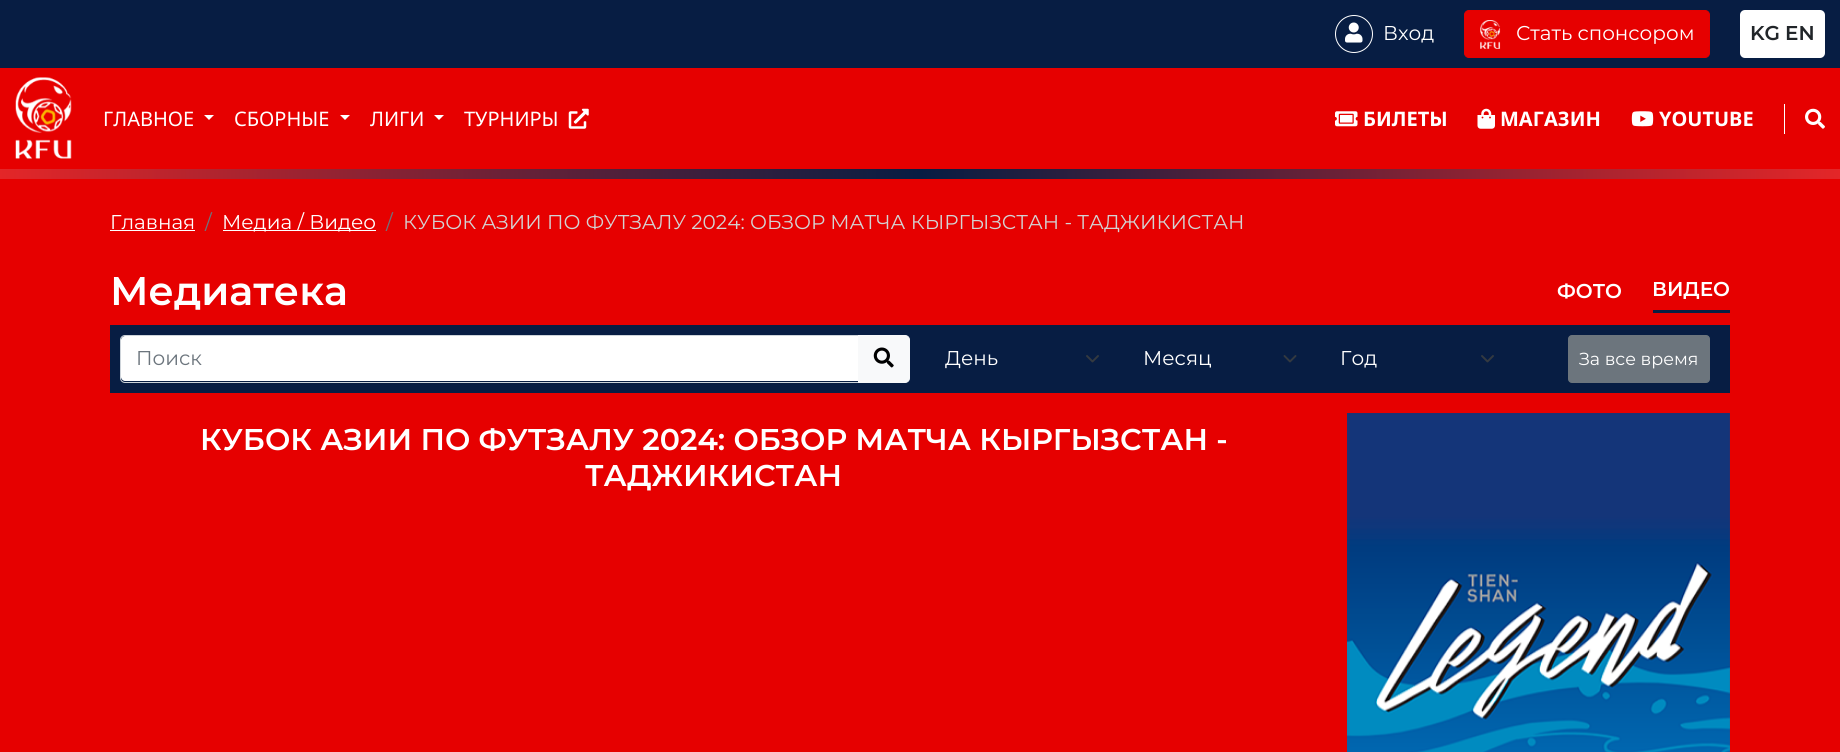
#include <cairo.h>
#include <math.h>
#include <stddef.h>


static void set_color(cairo_t *cr, unsigned color) {
    cairo_set_source_rgb(cr, (color >> 16) / 255.0, (color >> 8 & 255) / 255.0, (color & 255) / 255.0);
}

static void draw_text(cairo_t *cr, double x, double y, const char *s, const char *family, double size, int italic, int bold, unsigned color) {
    cairo_select_font_face(cr, family, italic ? CAIRO_FONT_SLANT_ITALIC : CAIRO_FONT_SLANT_NORMAL,
        bold ? CAIRO_FONT_WEIGHT_BOLD : CAIRO_FONT_WEIGHT_NORMAL);
    cairo_set_font_size(cr, size);
    set_color(cr, color);
    cairo_move_to(cr, x, y);
    cairo_show_text(cr, s);
}

static void fill_rect(cairo_t *cr, double x, double y, double w, double h, unsigned color) {
    set_color(cr, color);
    cairo_rectangle(cr, x, y, w, h);
    cairo_fill(cr);
}

static void rounded_rect(cairo_t *cr, double x, double y, double w, double h, double r) {
    cairo_new_sub_path(cr);
    cairo_arc(cr, x + w - r, y + h - r, r, 0, M_PI / 2);
    cairo_arc(cr, x + r, y + h - r, r, M_PI / 2, M_PI);
    cairo_arc(cr, x + r, y + r, r, M_PI, 1.5 * M_PI);
    cairo_arc(cr, x + w - r, y + r, r, 1.5 * M_PI, 2 * M_PI);
    cairo_close_path(cr);
}

static void draw_image(cairo_t *cr, const char *path, double x, double y, double w, double h) {
    cairo_surface_t *image = cairo_image_surface_create_from_png(path);
    cairo_save(cr);
    cairo_set_source_surface(cr, image, x, y);
    cairo_rectangle(cr, x, y, w, h);
    cairo_fill(cr);
    cairo_restore(cr);
    cairo_surface_destroy(image);
}

int main(void) {
    cairo_surface_t *surface = cairo_image_surface_create(CAIRO_FORMAT_RGB24, 1840, 752);
    cairo_t *cr = cairo_create(surface);
    cairo_font_options_t *options = cairo_font_options_create();
    cairo_font_options_set_hint_metrics(options, CAIRO_HINT_METRICS_OFF);
    cairo_font_options_set_hint_style(options, CAIRO_HINT_STYLE_NONE);
    cairo_set_font_options(cr, options);
    cairo_set_miter_limit(cr, 4);
    cairo_pattern_t *gradient;
    set_color(cr, 0xE60000);
    cairo_paint(cr);
    fill_rect(cr, 0, 0, 1840, 68, 0x071D43);
    cairo_arc(cr, 1354, 34, 18.5, 0, 2 * M_PI);
    set_color(cr, 0xFFFFFF);
    cairo_set_line_width(cr, 1);
    cairo_stroke(cr);
    draw_image(cr, "assets/img1.png", 1345, 22, 18, 21);
    draw_text(cr, 1383, 40, "Вход", "Montserrat", 20, 0, 0, 0xFFFFFF);
    set_color(cr, 0xE60000);
    rounded_rect(cr, 1464.5, 10.5, 245, 47, 4.5);
    cairo_fill_preserve(cr);
    set_color(cr, 0xE40000);
    cairo_stroke(cr);
    draw_image(cr, "assets/img2.png", 1480, 20, 21, 29);
    draw_text(cr, 1516, 40, "Стать спонсором", "Montserrat", 20, 0, 0, 0xFFFFFF);
    rounded_rect(cr, 1740, 10, 85, 48, 5);
    cairo_fill(cr);
    draw_text(cr, 1750, 40, "KG", "Montserrat SemiBold", 20, 0, 0, 0x212529);
    draw_text(cr, 1785, 40, "EN", "Montserrat SemiBold", 20, 0, 0, 0x212529);
    draw_image(cr, "assets/img3.png", 15, 77, 57, 82);
    draw_text(cr, 103, 126, "ГЛАВНОЕ", "Noto Sans", 20, 0, 0, 0xFFFFFF);
    cairo_new_path(cr);
    cairo_move_to(cr, 204, 115);
    cairo_line_to(cr, 214, 115);
    cairo_line_to(cr, 209, 120);
    cairo_close_path(cr);
    cairo_fill(cr);
    draw_text(cr, 234, 126, "СБОРНЫЕ", "Noto Sans", 20, 0, 0, 0xFFFFFF);
    cairo_new_path(cr);
    cairo_move_to(cr, 340, 115);
    cairo_line_to(cr, 350, 115);
    cairo_line_to(cr, 345, 120);
    cairo_close_path(cr);
    cairo_fill(cr);
    draw_text(cr, 370, 126, "ЛИГИ", "Noto Sans", 20, 0, 0, 0xFFFFFF);
    cairo_new_path(cr);
    cairo_move_to(cr, 434, 115);
    cairo_line_to(cr, 444, 115);
    cairo_line_to(cr, 439, 120);
    cairo_close_path(cr);
    cairo_fill(cr);
    draw_text(cr, 464, 126, "ТУРНИРЫ", "Noto Sans", 20, 0, 0, 0xFFFFFF);
    draw_image(cr, "assets/img4.png", 568, 108, 21, 21);
    draw_image(cr, "assets/img5.png", 1335, 111, 23, 16);
    draw_text(cr, 1363, 126, "БИЛЕТЫ", "Noto Sans", 20, 0, 1, 0xFFFFFF);
    draw_image(cr, "assets/img6.png", 1477, 108, 18, 21);
    draw_text(cr, 1500, 126, "МАГАЗИН", "Noto Sans", 20, 0, 1, 0xFFFFFF);
    draw_image(cr, "assets/img7.png", 1631, 111, 23, 16);
    draw_text(cr, 1659, 126, "YOUTUBE", "Noto Sans", 20, 0, 1, 0xFFFFFF);
    fill_rect(cr, 1784, 104, 1, 30, 0xFFFFFF);
    draw_image(cr, "assets/img8.png", 1805, 108, 20, 21);
    gradient = cairo_pattern_create_linear(0, 174, 1840, 174);
    cairo_pattern_add_color_stop_rgba(gradient, 0, 0.894, 0.149, 0.157, 1);
    cairo_pattern_add_color_stop_rgba(gradient, 0.5, 0.027, 0.114, 0.263, 1);
    cairo_pattern_add_color_stop_rgba(gradient, 1, 0.894, 0.149, 0.157, 1);
    cairo_set_source(cr, gradient);
    cairo_pattern_destroy(gradient);
    cairo_rectangle(cr, 0, 169, 1840, 10);
    cairo_fill(cr);
    draw_text(cr, 110, 229, "Главная", "Montserrat", 20, 0, 0, 0xFFFFFF);
    fill_rect(cr, 110, 230, 85, 1, 0xFFFFFF);
    draw_text(cr, 205, 229, "/", "Montserrat", 20, 0, 0, 0x6C757D);
    fill_rect(cr, 223, 230, 153, 1, 0xFFFFFF);
    draw_text(cr, 222, 229, "Медиа / Видео", "Montserrat", 20, 0, 0, 0xFFFFFF);
    draw_text(cr, 386, 229, "/", "Montserrat", 20, 0, 0, 0x6C757D);
    draw_text(cr, 403, 229, "КУБОК АЗИИ ПО ФУТЗАЛУ 2024: ОБЗОР МАТЧА КЫРГЫЗСТАН - ТАДЖИКИСТАН", "Montserrat", 20, 0, 0, 0xD3D3D3);
    draw_text(cr, 110, 305, "Медиатека", "Montserrat SemiBold", 40, 0, 0, 0xFFFFFF);
    draw_text(cr, 1557, 298, "ФОТО", "Montserrat SemiBold", 20, 0, 0, 0xFFFFFF);
    fill_rect(cr, 1653, 310, 77, 3, 0x091F44);
    draw_text(cr, 1652, 296, "ВИДЕО", "Montserrat SemiBold", 20, 0, 0, 0xFFFFFF);
    fill_rect(cr, 110, 325, 1620, 68, 0x071D43);
    set_color(cr, 0xFFFFFF);
    cairo_new_path(cr);
    cairo_move_to(cr, 125, 336);
    cairo_line_to(cr, 858, 336);
    cairo_line_to(cr, 858, 381);
    cairo_line_to(cr, 125, 381);
    cairo_curve_to(cr, 123, 381, 121, 379, 121, 377);
    cairo_line_to(cr, 121, 340);
    cairo_curve_to(cr, 121, 338, 123, 336, 125, 336);
    cairo_close_path(cr);
    cairo_fill(cr);
    cairo_new_path(cr);
    cairo_move_to(cr, 125, 335.5);
    cairo_line_to(cr, 858.5, 335.5);
    cairo_line_to(cr, 858.5, 382.5);
    cairo_line_to(cr, 125, 382.5);
    cairo_curve_to(cr, 122.5, 382.5, 120.5, 380.5, 120.5, 378);
    cairo_line_to(cr, 120.5, 340);
    cairo_curve_to(cr, 120.5, 337.5, 122.5, 335.5, 125, 335.5);
    cairo_close_path(cr);
    set_color(cr, 0xCED4DA);
    cairo_stroke(cr);
    draw_text(cr, 136, 365, "Поиск", "Montserrat", 20, 0, 0, 0x6C757D);
    set_color(cr, 0xF8F9FA);
    cairo_new_path(cr);
    cairo_move_to(cr, 858.5, 335.5);
    cairo_line_to(cr, 905, 335.5);
    cairo_curve_to(cr, 907.5, 335.5, 909.5, 337.5, 909.5, 340);
    cairo_line_to(cr, 909.5, 378);
    cairo_curve_to(cr, 909.5, 380.5, 907.5, 382.5, 905, 382.5);
    cairo_line_to(cr, 858.5, 382.5);
    cairo_close_path(cr);
    cairo_fill_preserve(cr);
    cairo_stroke(cr);
    draw_image(cr, "assets/img9.png", 873, 347, 21, 21);
    cairo_new_path(cr);
    cairo_move_to(cr, 1087, 356);
    cairo_line_to(cr, 1092.5, 361.5);
    cairo_line_to(cr, 1098, 356);
    set_color(cr, 0x343A40);
    cairo_set_line_width(cr, 1.9);
    cairo_set_line_cap(cr, CAIRO_LINE_CAP_ROUND);
    cairo_set_line_join(cr, CAIRO_LINE_JOIN_ROUND);
    cairo_stroke(cr);
    draw_text(cr, 945, 365, "День", "Montserrat", 20, 0, 0, 0xFFFFFF);
    cairo_new_path(cr);
    cairo_move_to(cr, 1284.5, 356);
    cairo_line_to(cr, 1290, 361.5);
    cairo_line_to(cr, 1295.5, 356);
    set_color(cr, 0x343A40);
    cairo_stroke(cr);
    draw_text(cr, 1143, 365, "Месяц", "Montserrat", 20, 0, 0, 0xFFFFFF);
    cairo_new_path(cr);
    cairo_move_to(cr, 1482, 356);
    cairo_line_to(cr, 1487.5, 361.5);
    cairo_line_to(cr, 1493, 356);
    set_color(cr, 0x343A40);
    cairo_stroke(cr);
    draw_text(cr, 1340, 365, "Год", "Montserrat", 20, 0, 0, 0xFFFFFF);
    set_color(cr, 0x6C757D);
    rounded_rect(cr, 1568.5, 335.5, 141, 47, 3.5);
    cairo_fill_preserve(cr);
    cairo_set_line_width(cr, 1);
    cairo_set_line_cap(cr, CAIRO_LINE_CAP_BUTT);
    cairo_set_line_join(cr, CAIRO_LINE_JOIN_MITER);
    cairo_stroke(cr);
    draw_text(cr, 1579, 365, "За все время", "Montserrat", 17.5, 0, 0, 0xFFFFFF);
    draw_text(cr, 200, 450, "КУБОК АЗИИ ПО ФУТЗАЛУ 2024: ОБЗОР МАТЧА КЫРГЫЗСТАН -", "Montserrat SemiBold", 30, 0, 0, 0xFFFFFF);
    draw_text(cr, 585, 486, "ТАДЖИКИСТАН", "Montserrat SemiBold", 30, 0, 0, 0xFFFFFF);
    draw_image(cr, "assets/img10.png", 1347, 413, 383, 339);
    cairo_surface_write_to_png(surface, "output.png");
    cairo_font_options_destroy(options);
    cairo_destroy(cr);
    cairo_surface_destroy(surface);
    return 0;
}
